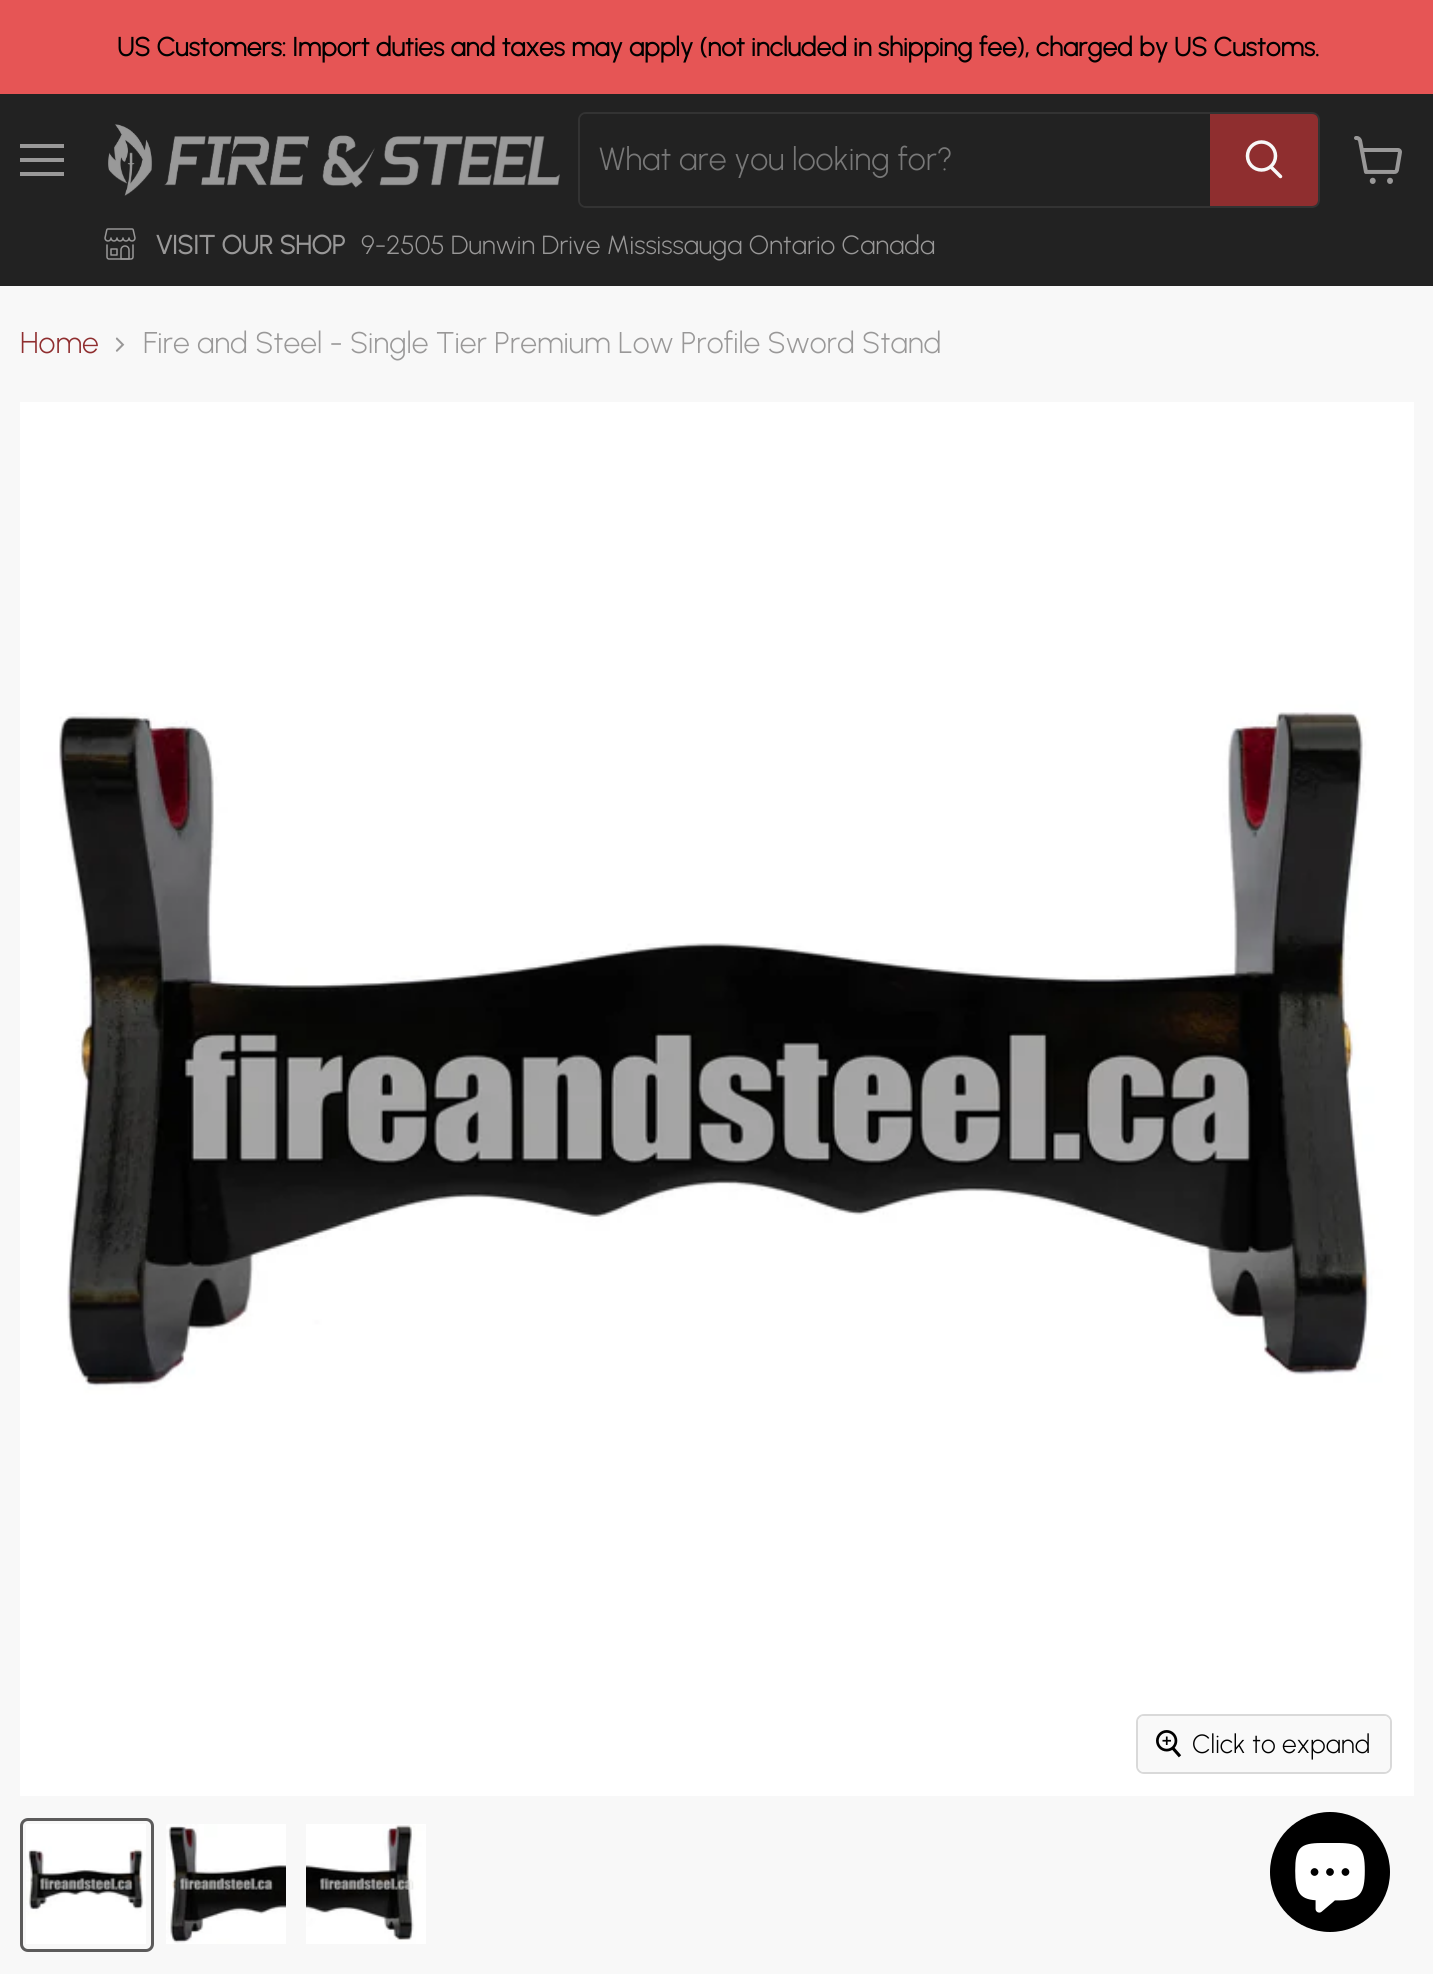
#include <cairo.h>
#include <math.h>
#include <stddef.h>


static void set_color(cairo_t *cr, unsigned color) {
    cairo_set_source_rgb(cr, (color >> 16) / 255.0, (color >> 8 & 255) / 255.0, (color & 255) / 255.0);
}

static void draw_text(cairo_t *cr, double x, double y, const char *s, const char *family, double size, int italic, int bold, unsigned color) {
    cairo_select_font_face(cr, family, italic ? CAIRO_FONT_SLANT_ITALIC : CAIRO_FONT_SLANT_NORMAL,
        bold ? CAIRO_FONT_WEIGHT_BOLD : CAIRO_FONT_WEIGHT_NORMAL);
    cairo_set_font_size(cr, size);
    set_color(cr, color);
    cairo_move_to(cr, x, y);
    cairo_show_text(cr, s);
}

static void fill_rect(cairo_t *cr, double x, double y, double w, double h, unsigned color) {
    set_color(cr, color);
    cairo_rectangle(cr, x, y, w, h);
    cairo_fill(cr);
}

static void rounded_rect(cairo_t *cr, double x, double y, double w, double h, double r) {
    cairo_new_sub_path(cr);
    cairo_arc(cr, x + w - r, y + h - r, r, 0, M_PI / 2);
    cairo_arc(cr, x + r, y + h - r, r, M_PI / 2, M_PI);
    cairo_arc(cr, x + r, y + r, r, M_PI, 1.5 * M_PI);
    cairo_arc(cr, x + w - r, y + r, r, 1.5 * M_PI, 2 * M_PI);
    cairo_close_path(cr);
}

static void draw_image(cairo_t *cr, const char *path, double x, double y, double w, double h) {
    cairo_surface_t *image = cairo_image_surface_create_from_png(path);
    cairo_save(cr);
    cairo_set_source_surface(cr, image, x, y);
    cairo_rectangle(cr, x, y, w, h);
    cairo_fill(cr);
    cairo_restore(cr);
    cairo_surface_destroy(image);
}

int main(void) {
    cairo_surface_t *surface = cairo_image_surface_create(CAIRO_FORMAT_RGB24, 1433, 1974);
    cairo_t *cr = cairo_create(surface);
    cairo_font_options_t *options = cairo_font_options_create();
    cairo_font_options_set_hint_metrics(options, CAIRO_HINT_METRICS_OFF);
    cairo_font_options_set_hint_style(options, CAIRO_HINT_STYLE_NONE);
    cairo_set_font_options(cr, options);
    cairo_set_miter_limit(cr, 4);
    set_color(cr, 0xF8F8F8);
    cairo_paint(cr);
    fill_rect(cr, 0, 0, 1433, 94, 0xE65555);
    draw_text(cr, 117, 56, "US Customers: Import duties and taxes may apply (not included in shipping fee), charged by US Customs.", "Urbanist", 26.25, 0, 1, 0x000000);
    fill_rect(cr, 0, 94, 1433, 192, 0x222222);
    fill_rect(cr, 20, 144, 44, 4, 0x999898);
    fill_rect(cr, 20, 158, 44, 4, 0x999898);
    fill_rect(cr, 20, 172, 44, 4, 0x999898);
    draw_image(cr, "assets/img1.png", 108, 124, 452, 72);
    rounded_rect(cr, 579, 113, 740, 94, 7);
    cairo_set_source_rgba(cr, 0.486, 0.486, 0.486, 0.2);
    cairo_stroke(cr);
    set_color(cr, 0x222222);
    cairo_new_path(cr);
    cairo_move_to(cr, 586, 114);
    cairo_line_to(cr, 1210, 114);
    cairo_line_to(cr, 1210, 206);
    cairo_line_to(cr, 586, 206);
    cairo_curve_to(cr, 582.5, 206, 580, 203.5, 580, 200);
    cairo_line_to(cr, 580, 120);
    cairo_curve_to(cr, 580, 116.5, 582.5, 114, 586, 114);
    cairo_close_path(cr);
    cairo_fill(cr);
    draw_text(cr, 599, 170, "What are you looking for?", "Urbanist Light", 32, 0, 0, 0x787878);
    set_color(cr, 0x8F2E2F);
    cairo_new_path(cr);
    cairo_move_to(cr, 1211, 115);
    cairo_line_to(cr, 1312, 115);
    cairo_curve_to(cr, 1315, 115, 1317, 117, 1317, 120);
    cairo_line_to(cr, 1317, 200);
    cairo_curve_to(cr, 1317, 203, 1315, 205, 1312, 205);
    cairo_line_to(cr, 1211, 205);
    cairo_close_path(cr);
    cairo_fill_preserve(cr);
    cairo_stroke(cr);
    cairo_new_path(cr);
    cairo_move_to(cr, 1280.5, 176.5);
    cairo_line_to(cr, 1271, 167);
    set_color(cr, 0xF8F8F8);
    cairo_set_line_width(cr, 3.5);
    cairo_set_line_cap(cr, CAIRO_LINE_CAP_ROUND);
    cairo_stroke(cr);
    cairo_arc(cr, 1261.5, 156, 14, 0, 2 * M_PI);
    cairo_set_line_cap(cr, CAIRO_LINE_CAP_BUTT);
    cairo_stroke(cr);
    draw_image(cr, "assets/img2.png", 104, 228, 32, 32);
    draw_text(cr, 156, 254, "VISIT OUR SHOP", "Urbanist", 26.25, 0, 1, 0x999898);
    draw_text(cr, 361, 254, "9-2505 Dunwin Drive Mississauga Ontario Canada", "Urbanist Light", 26.25, 0, 0, 0x999898);
    draw_image(cr, "assets/img3.png", 1354, 136, 48, 48);
    draw_text(cr, 20, 353, "Home", "Urbanist Light", 30, 0, 0, 0x8F2E2F);
    draw_image(cr, "assets/img4.png", 115, 337, 10, 15);
    draw_text(cr, 143, 353, "Fire and Steel - Single Tier Premium Low Profile Sword Stand", "Urbanist Light", 30, 0, 0, 0x999898);
    draw_image(cr, "assets/img5.png", 20, 402, 1394, 1394);
    rounded_rect(cr, 1137, 1715, 254, 58, 7);
    set_color(cr, 0xD9D9D9);
    cairo_set_line_width(cr, 2);
    cairo_stroke(cr);
    cairo_set_source_rgba(cr, 0.973, 0.973, 0.973, 0.9);
    rounded_rect(cr, 1138, 1716, 252, 56, 6);
    cairo_fill(cr);
    draw_image(cr, "assets/img6.png", 1156, 1730, 26, 28);
    draw_text(cr, 1192, 1753, "Click to expand", "Urbanist Light", 26.25, 0, 0, 0x000000);
    rounded_rect(cr, 21.5, 1819.5, 131, 131, 6.5);
    set_color(cr, 0x5C5B5B);
    cairo_set_line_width(cr, 3);
    cairo_stroke(cr);
    draw_image(cr, "assets/img7.png", 26, 1824, 120, 120);
    draw_image(cr, "assets/img8.png", 166, 1824, 120, 120);
    draw_image(cr, "assets/img9.png", 306, 1824, 120, 120);
    set_color(cr, 0x000000);
    cairo_arc(cr, 1330, 1872, 60, 0, 2 * M_PI);
    cairo_fill(cr);
    draw_image(cr, "assets/img10.png", 1295, 1843, 70, 70);
    cairo_surface_write_to_png(surface, "output.png");
    cairo_font_options_destroy(options);
    cairo_destroy(cr);
    cairo_surface_destroy(surface);
    return 0;
}
